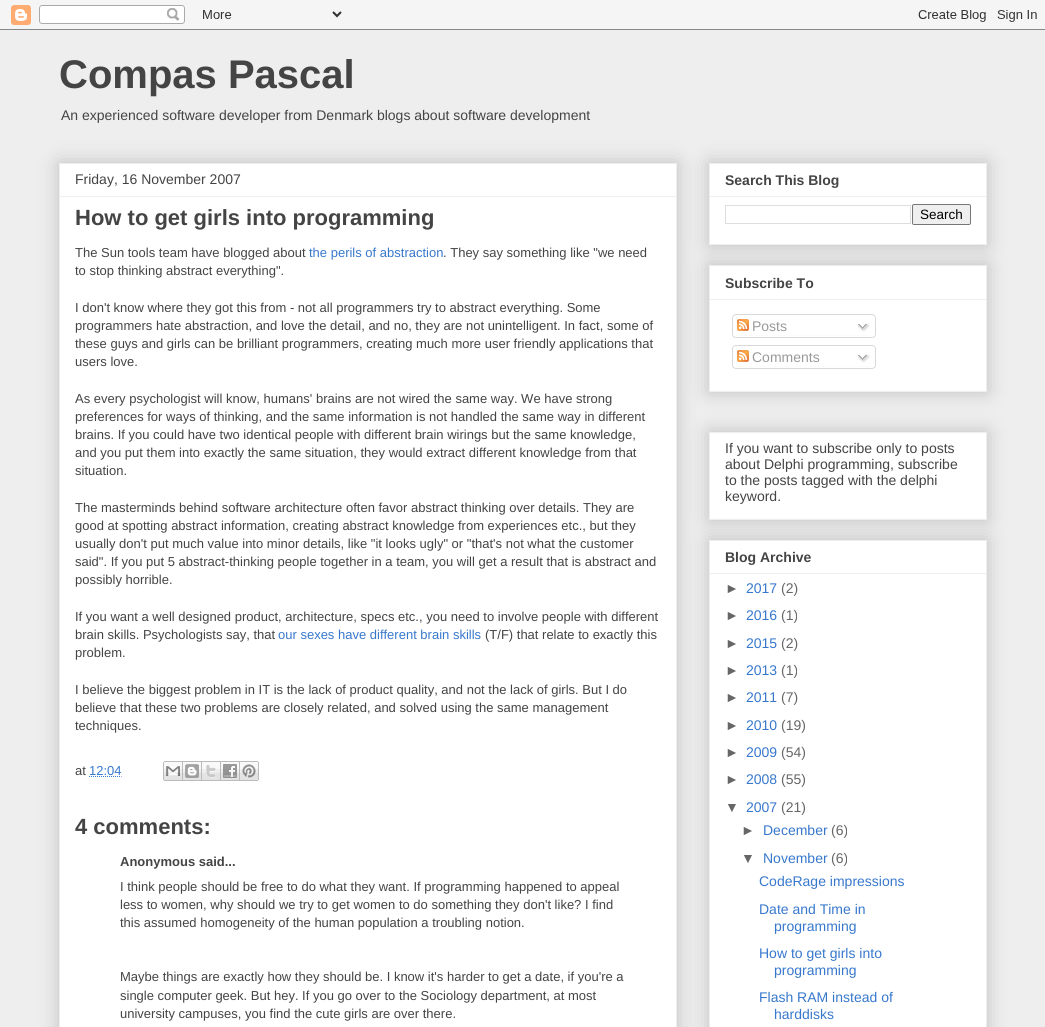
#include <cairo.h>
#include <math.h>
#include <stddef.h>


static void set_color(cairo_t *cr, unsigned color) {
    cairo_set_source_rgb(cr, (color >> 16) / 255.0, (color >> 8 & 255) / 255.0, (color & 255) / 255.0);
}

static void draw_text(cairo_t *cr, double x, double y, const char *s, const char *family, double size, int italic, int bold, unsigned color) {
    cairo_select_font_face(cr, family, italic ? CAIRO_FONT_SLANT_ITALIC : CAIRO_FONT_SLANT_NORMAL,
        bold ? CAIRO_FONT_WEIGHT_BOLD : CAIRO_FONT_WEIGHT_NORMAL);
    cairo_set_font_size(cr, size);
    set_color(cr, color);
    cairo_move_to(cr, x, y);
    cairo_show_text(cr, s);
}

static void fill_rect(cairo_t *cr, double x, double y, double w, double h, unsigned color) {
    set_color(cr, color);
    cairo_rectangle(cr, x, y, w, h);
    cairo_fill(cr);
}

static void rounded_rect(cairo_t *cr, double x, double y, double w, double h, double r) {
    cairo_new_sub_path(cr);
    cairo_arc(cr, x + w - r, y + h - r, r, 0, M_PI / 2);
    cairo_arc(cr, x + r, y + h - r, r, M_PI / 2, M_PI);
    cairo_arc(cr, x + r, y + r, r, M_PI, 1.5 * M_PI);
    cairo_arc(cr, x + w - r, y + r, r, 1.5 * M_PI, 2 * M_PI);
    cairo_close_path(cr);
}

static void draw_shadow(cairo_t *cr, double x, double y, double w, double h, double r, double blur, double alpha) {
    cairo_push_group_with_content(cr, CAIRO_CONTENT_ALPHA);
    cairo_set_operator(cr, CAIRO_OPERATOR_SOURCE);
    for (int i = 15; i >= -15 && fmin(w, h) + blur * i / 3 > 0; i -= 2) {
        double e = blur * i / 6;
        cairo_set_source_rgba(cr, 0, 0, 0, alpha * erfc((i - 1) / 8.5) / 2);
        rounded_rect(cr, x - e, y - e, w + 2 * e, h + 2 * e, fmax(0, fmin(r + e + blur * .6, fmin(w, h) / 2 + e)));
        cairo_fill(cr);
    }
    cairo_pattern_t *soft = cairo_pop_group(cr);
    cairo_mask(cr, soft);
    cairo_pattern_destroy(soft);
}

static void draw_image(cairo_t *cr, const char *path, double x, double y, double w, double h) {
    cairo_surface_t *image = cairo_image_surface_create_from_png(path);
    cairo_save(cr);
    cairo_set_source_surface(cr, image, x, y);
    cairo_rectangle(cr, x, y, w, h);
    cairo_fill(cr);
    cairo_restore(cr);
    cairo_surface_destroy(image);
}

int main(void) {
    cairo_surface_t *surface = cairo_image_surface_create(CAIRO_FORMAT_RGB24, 1045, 1027);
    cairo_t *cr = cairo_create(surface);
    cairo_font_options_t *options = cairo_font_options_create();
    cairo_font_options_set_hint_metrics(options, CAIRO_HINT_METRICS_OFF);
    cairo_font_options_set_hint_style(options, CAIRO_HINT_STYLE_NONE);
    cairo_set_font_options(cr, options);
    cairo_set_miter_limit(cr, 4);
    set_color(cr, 0xEEEEEE);
    cairo_paint(cr);
    draw_image(cr, "assets/img1.png", 0, 0, 1045, 30);
    draw_text(cr, 59, 88, "Compas Pascal", "Liberation Sans", 40, 0, 1, 0x444444);
    draw_text(cr, 61, 120, "An experienced software developer from Denmark blogs about software development", "Liberation Sans", 14, 0, 0, 0x444444);
    set_color(cr, 0x000000);
    draw_shadow(cr, 59, 163, 618, 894, 0, 10, 0.2);
    set_color(cr, 0xFFFFFF);
    cairo_rectangle(cr, 59.5, 163.5, 617, 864);
    cairo_fill_preserve(cr);
    set_color(cr, 0xEEEEEE);
    cairo_set_line_width(cr, 1);
    cairo_stroke(cr);
    draw_text(cr, 75, 184, "Friday, 16 November 2007", "Liberation Sans", 14, 0, 0, 0x444444);
    fill_rect(cr, 60, 196, 616, 1, 0xEEEEEE);
    draw_text(cr, 75, 225, "How to get girls into programming", "Liberation Sans", 22, 0, 1, 0x444444);
    draw_text(cr, 75, 257, "The Sun tools team have blogged about", "Liberation Sans", 13, 0, 0, 0x444444);
    draw_text(cr, 309, 257, "the perils of abstraction", "Liberation Sans", 13, 0, 0, 0x3778CD);
    draw_text(cr, 443, 257, ". They say something like \"we need", "Liberation Sans", 13, 0, 0, 0x444444);
    draw_text(cr, 75, 275, "to stop thinking abstract everything\".", "Liberation Sans", 13, 0, 0, 0x444444);
    draw_text(cr, 75, 312, "I don't know where they got this from - not all programmers try to abstract everything. Some", "Liberation Sans", 13, 0, 0, 0x444444);
    draw_text(cr, 75, 330, "programmers hate abstraction, and love the detail, and no, they are not unintelligent. In fact, some of", "Liberation Sans", 13, 0, 0, 0x444444);
    draw_text(cr, 75, 348, "these guys and girls can be brilliant programmers, creating much more user friendly applications that", "Liberation Sans", 13, 0, 0, 0x444444);
    draw_text(cr, 75, 366, "users love.", "Liberation Sans", 13, 0, 0, 0x444444);
    draw_text(cr, 75, 403, "As every psychologist will know, humans' brains are not wired the same way. We have strong", "Liberation Sans", 13, 0, 0, 0x444444);
    draw_text(cr, 75, 421, "preferences for ways of thinking, and the same information is not handled the same way in different", "Liberation Sans", 13, 0, 0, 0x444444);
    draw_text(cr, 75, 439, "brains. If you could have two identical people with different brain wirings but the same knowledge,", "Liberation Sans", 13, 0, 0, 0x444444);
    draw_text(cr, 75, 457, "and you put them into exactly the same situation, they would extract different knowledge from that", "Liberation Sans", 13, 0, 0, 0x444444);
    draw_text(cr, 75, 475, "situation.", "Liberation Sans", 13, 0, 0, 0x444444);
    draw_text(cr, 75, 512, "The masterminds behind software architecture often favor abstract thinking over details. They are", "Liberation Sans", 13, 0, 0, 0x444444);
    draw_text(cr, 75, 530, "good at spotting abstract information, creating abstract knowledge from experiences etc., but they", "Liberation Sans", 13, 0, 0, 0x444444);
    draw_text(cr, 75, 548, "usually don't put much value into minor details, like \"it looks ugly\" or \"that's not what the customer", "Liberation Sans", 13, 0, 0, 0x444444);
    draw_text(cr, 75, 566, "said\". If you put 5 abstract-thinking people together in a team, you will get a result that is abstract and", "Liberation Sans", 13, 0, 0, 0x444444);
    draw_text(cr, 75, 584, "possibly horrible.", "Liberation Sans", 13, 0, 0, 0x444444);
    draw_text(cr, 75, 621, "If you want a well designed product, architecture, specs etc., you need to involve people with different", "Liberation Sans", 13, 0, 0, 0x444444);
    draw_text(cr, 75, 639, "brain skills. Psychologists say, that", "Liberation Sans", 13, 0, 0, 0x444444);
    draw_text(cr, 278, 639, "our sexes have different brain skills", "Liberation Sans", 13, 0, 0, 0x3778CD);
    draw_text(cr, 485, 639, "(T/F) that relate to exactly this", "Liberation Sans", 13, 0, 0, 0x444444);
    draw_text(cr, 75, 657, "problem.", "Liberation Sans", 13, 0, 0, 0x444444);
    draw_text(cr, 75, 694, "I believe the biggest problem in IT is the lack of product quality, and not the lack of girls. But I do", "Liberation Sans", 13, 0, 0, 0x444444);
    draw_text(cr, 75, 712, "believe that these two problems are closely related, and solved using the same management", "Liberation Sans", 13, 0, 0, 0x444444);
    draw_text(cr, 75, 730, "techniques.", "Liberation Sans", 13, 0, 0, 0x444444);
    draw_text(cr, 75, 775, "at", "Liberation Sans", 13, 0, 0, 0x444444);
    draw_text(cr, 89, 775, "12:04", "Liberation Sans", 13, 0, 0, 0x3778CD);
    cairo_new_path(cr);
    cairo_move_to(cr, 89, 776.5);
    cairo_line_to(cr, 121.5, 776.5);
    cairo_set_dash(cr, (double[]){1, 1}, 2, 0);
    cairo_stroke(cr);
    draw_image(cr, "assets/img2.png", 163, 761, 20, 20);
    draw_image(cr, "assets/img3.png", 183, 761, 19, 20);
    draw_image(cr, "assets/img4.png", 202, 761, 19, 20);
    draw_image(cr, "assets/img5.png", 221, 761, 19, 20);
    draw_image(cr, "assets/img6.png", 240, 761, 19, 20);
    draw_text(cr, 75, 834, "4 comments:", "Liberation Sans", 22, 0, 1, 0x444444);
    draw_text(cr, 120, 866, "Anonymous said...", "Liberation Sans", 13, 0, 1, 0x444444);
    draw_text(cr, 120, 891, "I think people should be free to do what they want. If programming happened to appeal", "Liberation Sans", 13, 0, 0, 0x444444);
    draw_text(cr, 120, 909, "less to women, why should we try to get women to do something they don't like? I find", "Liberation Sans", 13, 0, 0, 0x444444);
    draw_text(cr, 120, 927, "this assumed homogeneity of the human population a troubling notion.", "Liberation Sans", 13, 0, 0, 0x444444);
    draw_text(cr, 120, 981, "Maybe things are exactly how they should be. I know it's harder to get a date, if you're a", "Liberation Sans", 13, 0, 0, 0x444444);
    draw_text(cr, 120, 1000, "single computer geek. But hey. If you go over to the Sociology department, at most", "Liberation Sans", 13, 0, 0, 0x444444);
    draw_text(cr, 120, 1018, "university campuses, you find the cute girls are over there.", "Liberation Sans", 13, 0, 0, 0x444444);
    set_color(cr, 0x000000);
    draw_shadow(cr, 709, 265, 278, 127, 0, 10, 0.2);
    set_color(cr, 0xFFFFFF);
    cairo_rectangle(cr, 709.5, 265.5, 277, 126);
    cairo_fill_preserve(cr);
    set_color(cr, 0xEEEEEE);
    cairo_set_dash(cr, NULL, 0, 0);
    cairo_stroke(cr);
    set_color(cr, 0x000000);
    draw_shadow(cr, 709, 163, 278, 82, 0, 10, 0.2);
    set_color(cr, 0xFFFFFF);
    cairo_rectangle(cr, 709.5, 163.5, 277, 81);
    cairo_fill_preserve(cr);
    set_color(cr, 0xEEEEEE);
    cairo_stroke(cr);
    draw_text(cr, 725, 185, "Search This Blog", "Liberation Sans", 14, 0, 1, 0x444444);
    fill_rect(cr, 710, 196, 276, 1, 0xEEEEEE);
    cairo_rectangle(cr, 725.5, 205.5, 185, 18);
    set_color(cr, 0xDDDDDD);
    cairo_stroke(cr);
    set_color(cr, 0xEFEFEF);
    rounded_rect(cr, 912.5, 204.5, 58, 20, 1.5);
    cairo_fill_preserve(cr);
    set_color(cr, 0x767676);
    cairo_stroke(cr);
    draw_text(cr, 920, 219, "Search", "Liberation Sans", 13.5, 0, 0, 0x000000);
    draw_text(cr, 725, 288, "Subscribe To", "Liberation Sans", 14, 0, 1, 0x444444);
    fill_rect(cr, 710, 299, 276, 1, 0xEEEEEE);
    draw_image(cr, "assets/img7.png", 732, 314, 144, 21);
    draw_image(cr, "assets/img8.png", 737, 319, 12, 12);
    draw_text(cr, 752, 331, "Posts", "Liberation Sans", 14, 0, 0, 0x999999);
    draw_image(cr, "assets/img9.png", 857, 323, 13, 9);
    draw_image(cr, "assets/img10.png", 732, 335, 144, 3);
    draw_image(cr, "assets/img7.png", 732, 345, 144, 21);
    draw_image(cr, "assets/img8.png", 737, 350, 12, 12);
    draw_text(cr, 752, 362, "Comments", "Liberation Sans", 14, 0, 0, 0x999999);
    draw_image(cr, "assets/img9.png", 857, 354, 13, 9);
    draw_image(cr, "assets/img10.png", 732, 366, 144, 3);
    set_color(cr, 0x000000);
    draw_shadow(cr, 709, 432, 278, 88, 0, 10, 0.2);
    set_color(cr, 0xFFFFFF);
    cairo_rectangle(cr, 709.5, 432.5, 277, 87);
    cairo_fill_preserve(cr);
    set_color(cr, 0xEEEEEE);
    cairo_stroke(cr);
    draw_text(cr, 725, 453, "If you want to subscribe only to posts", "Liberation Sans", 14, 0, 0, 0x444444);
    draw_text(cr, 725, 469, "about Delphi programming, subscribe", "Liberation Sans", 14, 0, 0, 0x444444);
    draw_text(cr, 725, 485, "to the posts tagged with the delphi", "Liberation Sans", 14, 0, 0, 0x444444);
    draw_text(cr, 725, 501, "keyword.", "Liberation Sans", 14, 0, 0, 0x444444);
    set_color(cr, 0x000000);
    draw_shadow(cr, 709, 540, 278, 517, 0, 10, 0.2);
    set_color(cr, 0xFFFFFF);
    cairo_rectangle(cr, 709.5, 540.5, 277, 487);
    cairo_fill_preserve(cr);
    set_color(cr, 0xEEEEEE);
    cairo_stroke(cr);
    draw_text(cr, 725, 562, "Blog Archive", "Liberation Sans", 14, 0, 1, 0x444444);
    fill_rect(cr, 710, 573, 276, 1, 0xEEEEEE);
    draw_text(cr, 725, 593, "►", "Liberation Sans", 14, 0, 0, 0x666666);
    draw_text(cr, 746, 593, "2017", "Liberation Sans", 14, 0, 0, 0x3778CD);
    draw_text(cr, 781, 593, "(2)", "Liberation Sans", 14, 0, 0, 0x666666);
    draw_text(cr, 725, 620, "►", "Liberation Sans", 14, 0, 0, 0x666666);
    draw_text(cr, 746, 620, "2016", "Liberation Sans", 14, 0, 0, 0x3778CD);
    draw_text(cr, 781, 620, "(1)", "Liberation Sans", 14, 0, 0, 0x666666);
    draw_text(cr, 725, 648, "►", "Liberation Sans", 14, 0, 0, 0x666666);
    draw_text(cr, 746, 648, "2015", "Liberation Sans", 14, 0, 0, 0x3778CD);
    draw_text(cr, 781, 648, "(2)", "Liberation Sans", 14, 0, 0, 0x666666);
    draw_text(cr, 725, 675, "►", "Liberation Sans", 14, 0, 0, 0x666666);
    draw_text(cr, 746, 675, "2013", "Liberation Sans", 14, 0, 0, 0x3778CD);
    draw_text(cr, 781, 675, "(1)", "Liberation Sans", 14, 0, 0, 0x666666);
    draw_text(cr, 725, 702, "►", "Liberation Sans", 14, 0, 0, 0x666666);
    draw_text(cr, 746, 702, "2011", "Liberation Sans", 14, 0, 0, 0x3778CD);
    draw_text(cr, 781, 702, "(7)", "Liberation Sans", 14, 0, 0, 0x666666);
    draw_text(cr, 725, 730, "►", "Liberation Sans", 14, 0, 0, 0x666666);
    draw_text(cr, 746, 730, "2010", "Liberation Sans", 14, 0, 0, 0x3778CD);
    draw_text(cr, 781, 730, "(19)", "Liberation Sans", 14, 0, 0, 0x666666);
    draw_text(cr, 725, 757, "►", "Liberation Sans", 14, 0, 0, 0x666666);
    draw_text(cr, 746, 757, "2009", "Liberation Sans", 14, 0, 0, 0x3778CD);
    draw_text(cr, 781, 757, "(54)", "Liberation Sans", 14, 0, 0, 0x666666);
    draw_text(cr, 725, 784, "►", "Liberation Sans", 14, 0, 0, 0x666666);
    draw_text(cr, 746, 784, "2008", "Liberation Sans", 14, 0, 0, 0x3778CD);
    draw_text(cr, 781, 784, "(55)", "Liberation Sans", 14, 0, 0, 0x666666);
    draw_text(cr, 725, 812, "▼", "Liberation Sans", 14, 0, 0, 0x666666);
    draw_text(cr, 746, 812, "2007", "Liberation Sans", 14, 0, 0, 0x3778CD);
    draw_text(cr, 781, 812, "(21)", "Liberation Sans", 14, 0, 0, 0x666666);
    draw_text(cr, 741, 835, "►", "Liberation Sans", 14, 0, 0, 0x666666);
    draw_text(cr, 763, 835, "December", "Liberation Sans", 14, 0, 0, 0x3778CD);
    draw_text(cr, 831, 835, "(6)", "Liberation Sans", 14, 0, 0, 0x666666);
    draw_text(cr, 741, 863, "▼", "Liberation Sans", 14, 0, 0, 0x666666);
    draw_text(cr, 763, 863, "November", "Liberation Sans", 14, 0, 0, 0x3778CD);
    draw_text(cr, 831, 863, "(6)", "Liberation Sans", 14, 0, 0, 0x666666);
    draw_text(cr, 759, 886, "CodeRage impressions", "Liberation Sans", 14, 0, 0, 0x3778CD);
    draw_text(cr, 759, 914, "Date and Time in", "Liberation Sans", 14, 0, 0, 0x3778CD);
    draw_text(cr, 774, 931, "programming", "Liberation Sans", 14, 0, 0, 0x3778CD);
    draw_text(cr, 759, 958, "How to get girls into", "Liberation Sans", 14, 0, 0, 0x3778CD);
    draw_text(cr, 774, 975, "programming", "Liberation Sans", 14, 0, 0, 0x3778CD);
    draw_text(cr, 759, 1002, "Flash RAM instead of", "Liberation Sans", 14, 0, 0, 0x3778CD);
    draw_text(cr, 774, 1019, "harddisks", "Liberation Sans", 14, 0, 0, 0x3778CD);
    cairo_surface_write_to_png(surface, "output.png");
    cairo_font_options_destroy(options);
    cairo_destroy(cr);
    cairo_surface_destroy(surface);
    return 0;
}
